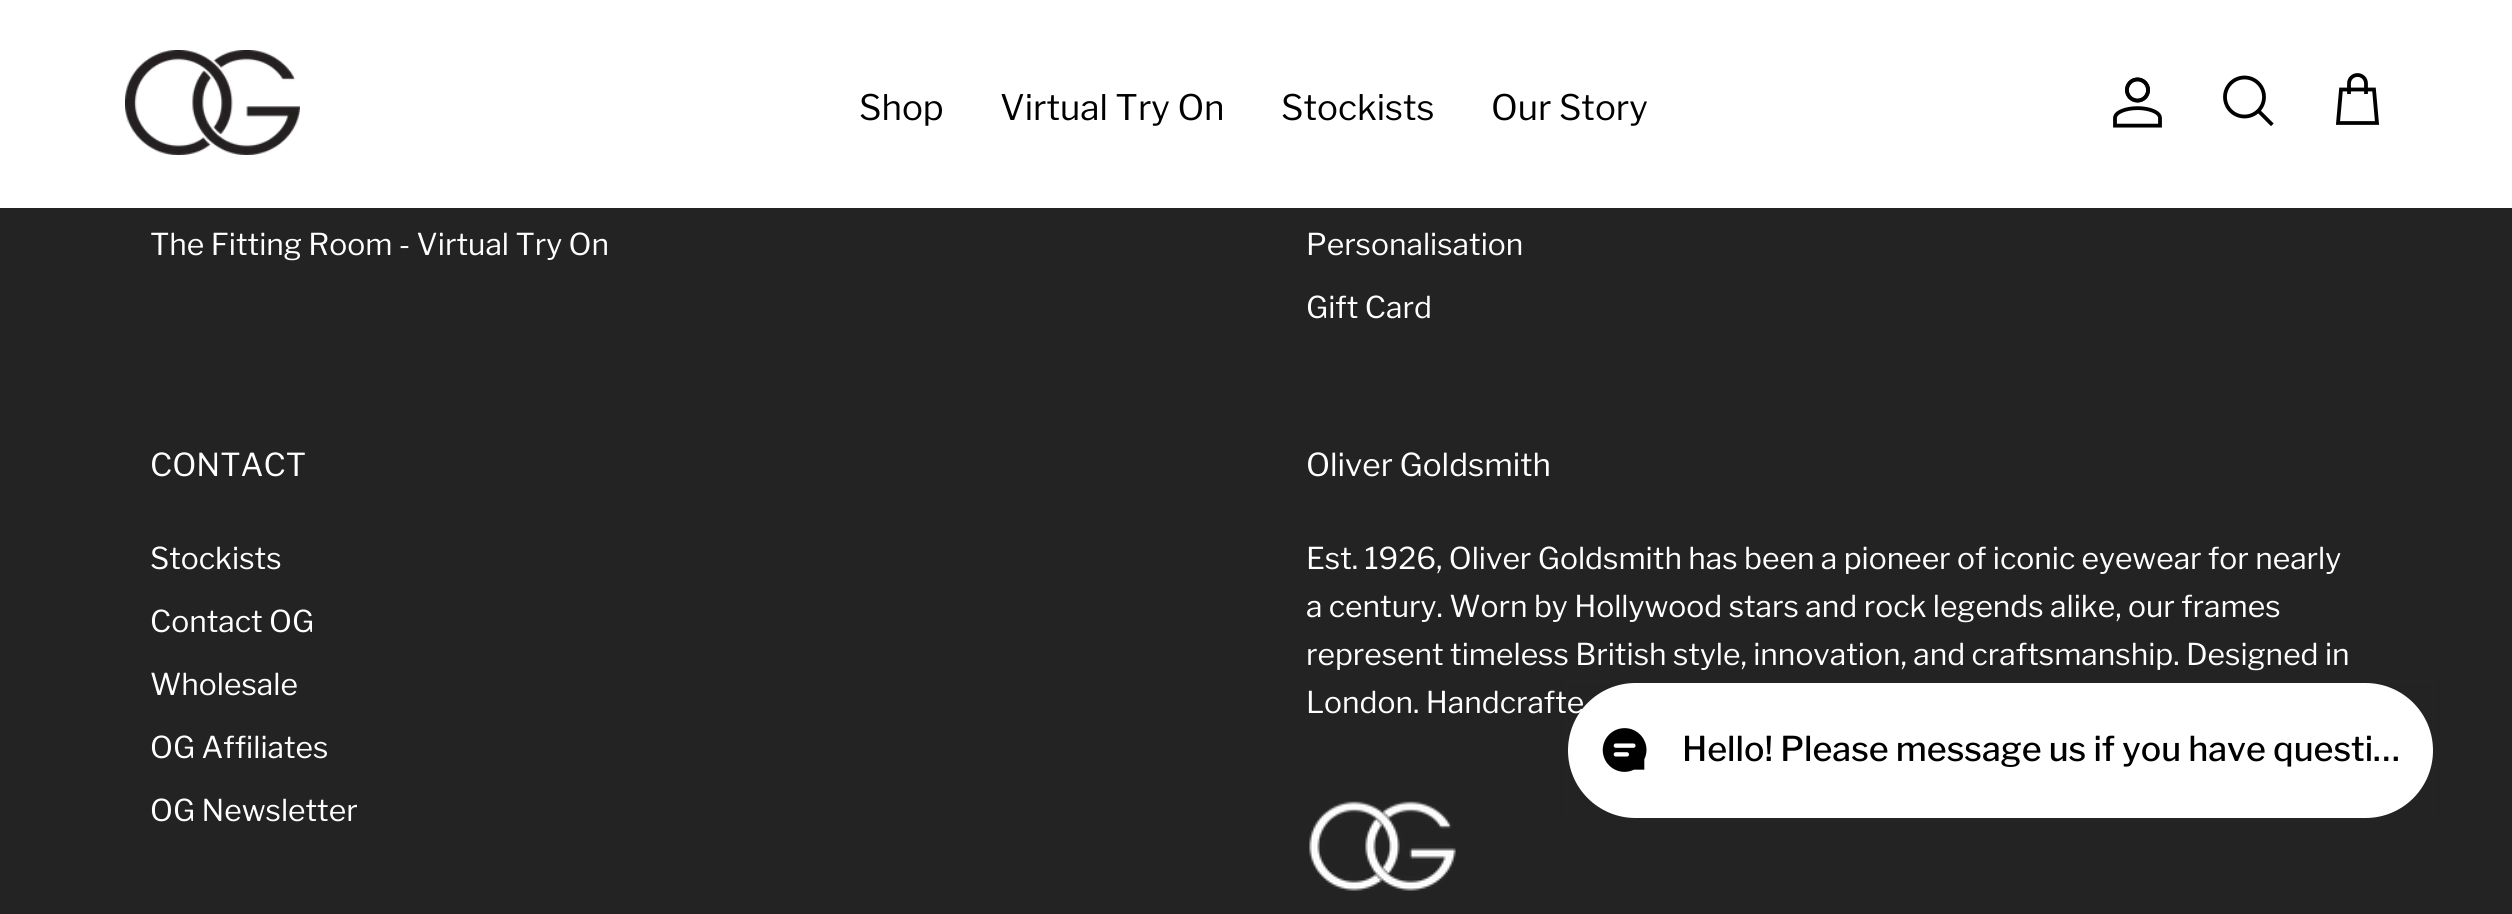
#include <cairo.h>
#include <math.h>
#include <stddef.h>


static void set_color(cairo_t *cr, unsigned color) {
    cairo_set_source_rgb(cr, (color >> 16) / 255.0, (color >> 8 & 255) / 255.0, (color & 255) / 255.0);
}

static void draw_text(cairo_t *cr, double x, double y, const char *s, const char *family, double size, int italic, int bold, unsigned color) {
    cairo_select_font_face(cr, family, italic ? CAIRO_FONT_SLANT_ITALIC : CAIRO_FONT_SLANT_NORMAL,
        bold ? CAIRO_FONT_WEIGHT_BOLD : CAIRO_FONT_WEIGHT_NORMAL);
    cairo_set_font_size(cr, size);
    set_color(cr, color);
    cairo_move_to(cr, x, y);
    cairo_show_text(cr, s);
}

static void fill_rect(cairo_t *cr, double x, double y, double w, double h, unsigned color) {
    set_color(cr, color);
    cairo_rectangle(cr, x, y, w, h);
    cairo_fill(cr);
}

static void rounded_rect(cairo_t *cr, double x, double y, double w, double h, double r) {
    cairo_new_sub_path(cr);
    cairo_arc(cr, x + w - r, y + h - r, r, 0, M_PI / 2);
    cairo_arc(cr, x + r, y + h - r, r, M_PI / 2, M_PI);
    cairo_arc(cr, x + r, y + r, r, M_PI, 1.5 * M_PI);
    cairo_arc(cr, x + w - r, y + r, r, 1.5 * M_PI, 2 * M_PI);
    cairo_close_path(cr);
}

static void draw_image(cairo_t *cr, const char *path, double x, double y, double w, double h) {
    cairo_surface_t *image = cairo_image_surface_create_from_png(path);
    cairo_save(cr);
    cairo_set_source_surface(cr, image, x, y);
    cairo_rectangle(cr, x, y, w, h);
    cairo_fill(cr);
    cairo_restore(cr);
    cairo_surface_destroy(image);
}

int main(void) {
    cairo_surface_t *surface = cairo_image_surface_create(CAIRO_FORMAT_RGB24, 2512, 914);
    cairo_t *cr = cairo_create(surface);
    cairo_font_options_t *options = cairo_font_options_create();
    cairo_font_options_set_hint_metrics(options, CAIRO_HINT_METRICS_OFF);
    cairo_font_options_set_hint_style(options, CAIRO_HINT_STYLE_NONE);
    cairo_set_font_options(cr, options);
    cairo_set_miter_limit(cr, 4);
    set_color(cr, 0x232323);
    cairo_paint(cr);
    fill_rect(cr, 0, 0, 2512, 208, 0xFFFFFF);
    draw_image(cr, "assets/img1.png", 125, 50, 175, 105);
    draw_text(cr, 859, 120, "Shop", "Libre Franklin", 35, 0, 0, 0x000000);
    draw_text(cr, 1000, 120, "Virtual Try On", "Libre Franklin", 35, 0, 0, 0x000000);
    draw_text(cr, 1281, 120, "Stockists", "Libre Franklin", 35, 0, 0, 0x000000);
    draw_text(cr, 1491, 120, "Our Story", "Libre Franklin", 35, 0, 0, 0x000000);
    draw_image(cr, "assets/img2.png", 2113, 77, 49, 51);
    cairo_arc(cr, 2244.5, 97, 19.5, 0, 2 * M_PI);
    cairo_set_line_width(cr, 3.8);
    cairo_stroke(cr);
    cairo_new_path(cr);
    cairo_move_to(cr, 2260, 112.5);
    cairo_line_to(cr, 2271, 123.5);
    cairo_set_line_cap(cr, CAIRO_LINE_CAP_SQUARE);
    cairo_stroke(cr);
    cairo_new_path(cr);
    cairo_move_to(cr, 2366, 94);
    cairo_line_to(cr, 2366, 83.5);
    cairo_curve_to(cr, 2366, 78.5, 2362, 75, 2357.5, 75);
    cairo_curve_to(cr, 2353, 75, 2349, 78.5, 2349, 83.5);
    cairo_line_to(cr, 2349, 94);
    cairo_move_to(cr, 2341, 89.5);
    cairo_line_to(cr, 2374, 89.5);
    cairo_line_to(cr, 2377, 123);
    cairo_line_to(cr, 2338, 123);
    cairo_close_path(cr);
    cairo_set_line_cap(cr, CAIRO_LINE_CAP_BUTT);
    cairo_stroke(cr);
    draw_text(cr, 150, 255, "The Fitting Room - Virtual Try On", "Libre Franklin", 30, 0, 0, 0xFFFFFF);
    draw_text(cr, 1306, 255, "Personalisation", "Libre Franklin", 30, 0, 0, 0xFFFFFF);
    draw_text(cr, 1306, 318, "Gift Card", "Libre Franklin", 30, 0, 0, 0xFFFFFF);
    draw_text(cr, 150, 476, "CONTACT", "Libre Franklin", 31.5, 0, 0, 0xFFFFFF);
    draw_text(cr, 150, 569, "Stockists", "Libre Franklin", 30, 0, 0, 0xFFFFFF);
    draw_text(cr, 150, 632, "Contact OG", "Libre Franklin", 30, 0, 0, 0xFFFFFF);
    draw_text(cr, 150, 695, "Wholesale", "Libre Franklin", 30, 0, 0, 0xFFFFFF);
    draw_text(cr, 150, 758, "OG Affiliates", "Libre Franklin", 30, 0, 0, 0xFFFFFF);
    draw_text(cr, 150, 821, "OG Newsletter", "Libre Franklin", 30, 0, 0, 0xFFFFFF);
    draw_text(cr, 1306, 476, "Oliver Goldsmith", "Libre Franklin", 31.5, 0, 0, 0xFFFFFF);
    draw_text(cr, 1306, 569, "Est. 1926, Oliver Goldsmith has been a pioneer of iconic eyewear for nearly", "Libre Franklin", 30, 0, 0, 0xFFFFFF);
    draw_text(cr, 1306, 617, "a century. Worn by Hollywood stars and rock legends alike, our frames", "Libre Franklin", 30, 0, 0, 0xFFFFFF);
    draw_text(cr, 1306, 665, "represent timeless British style, innovation, and craftsmanship. Designed in", "Libre Franklin", 30, 0, 0, 0xFFFFFF);
    draw_text(cr, 1306, 713, "London. Handcrafte", "Libre Franklin", 30, 0, 0, 0xFFFFFF);
    draw_image(cr, "assets/img3.png", 1309, 801, 147, 90);
    cairo_rectangle(cr, 1566.5, 681.5, 867, 137);
    cairo_set_source_rgba(cr, 0.216, 0.247, 0.278, 0.04);
    cairo_set_line_width(cr, 3);
    cairo_stroke(cr);
    set_color(cr, 0xFFFFFF);
    rounded_rect(cr, 1568, 683, 865, 135, 67.5);
    cairo_fill(cr);
    draw_image(cr, "assets/img4.png", 1602, 728, 45, 44);
    draw_text(cr, 1682, 761, "Hello! Please message us if you have questi…", "Libre Franklin Medium", 34.1, 0, 0, 0x000000);
    cairo_surface_write_to_png(surface, "output.png");
    cairo_font_options_destroy(options);
    cairo_destroy(cr);
    cairo_surface_destroy(surface);
    return 0;
}
